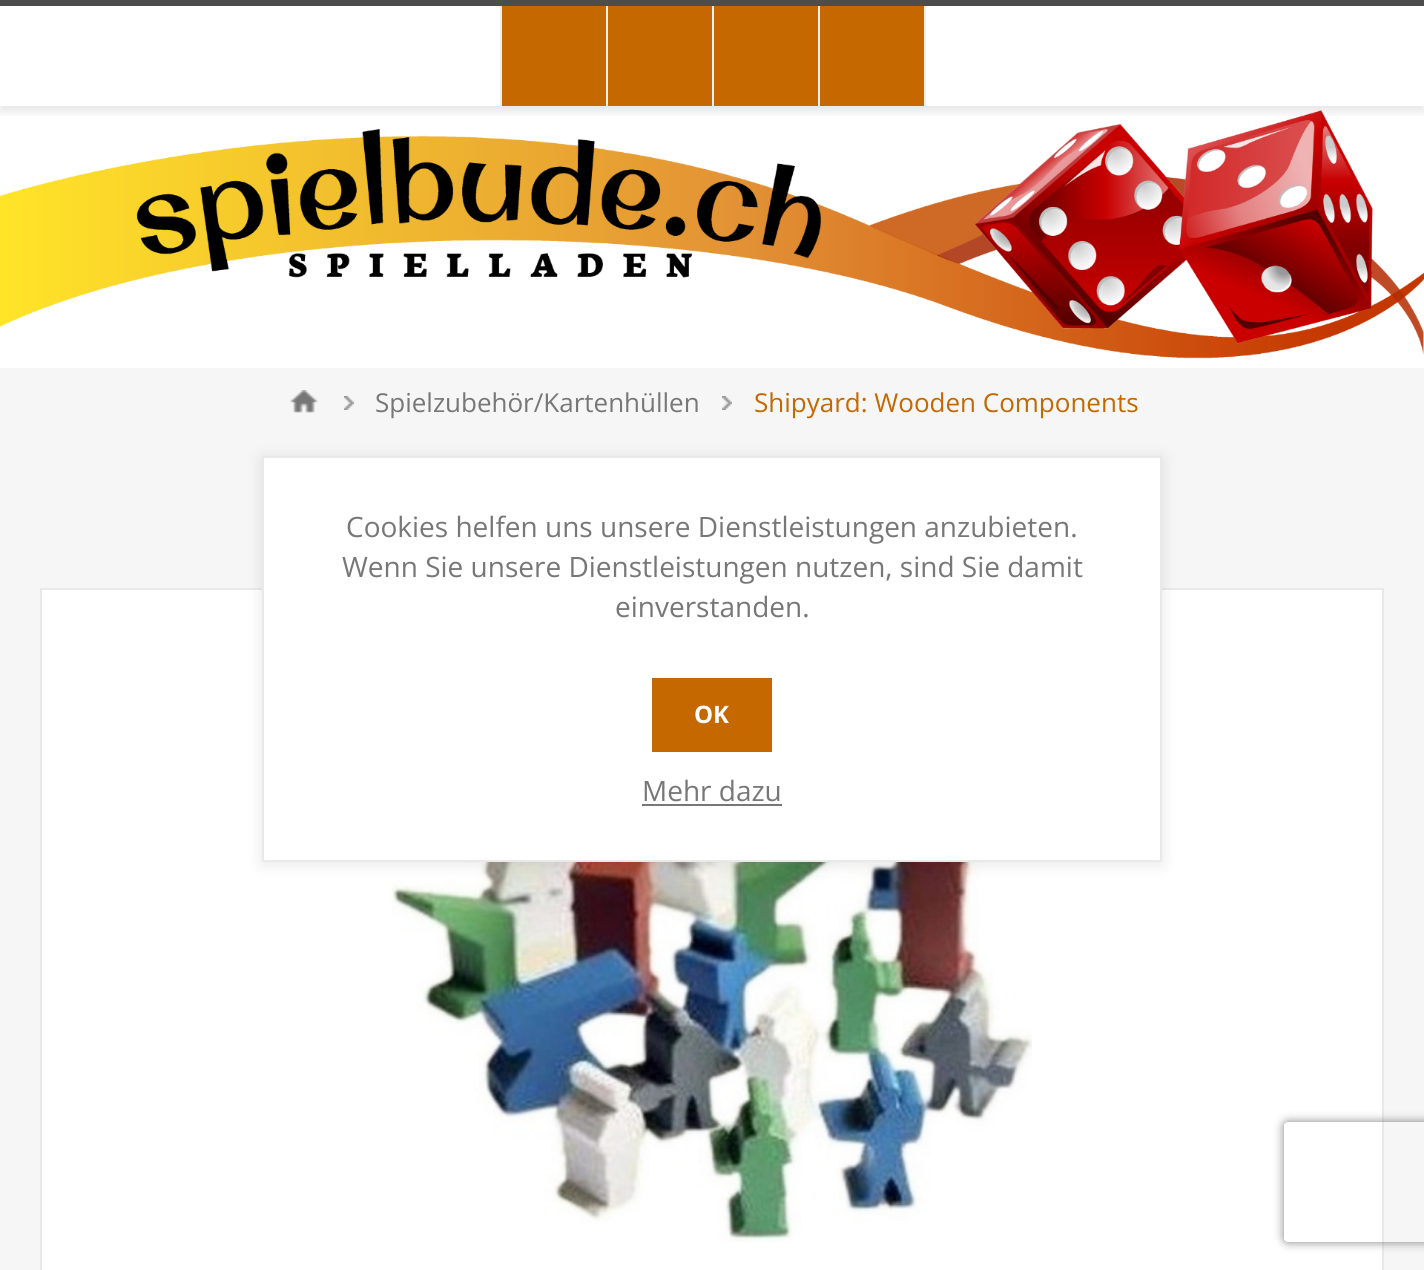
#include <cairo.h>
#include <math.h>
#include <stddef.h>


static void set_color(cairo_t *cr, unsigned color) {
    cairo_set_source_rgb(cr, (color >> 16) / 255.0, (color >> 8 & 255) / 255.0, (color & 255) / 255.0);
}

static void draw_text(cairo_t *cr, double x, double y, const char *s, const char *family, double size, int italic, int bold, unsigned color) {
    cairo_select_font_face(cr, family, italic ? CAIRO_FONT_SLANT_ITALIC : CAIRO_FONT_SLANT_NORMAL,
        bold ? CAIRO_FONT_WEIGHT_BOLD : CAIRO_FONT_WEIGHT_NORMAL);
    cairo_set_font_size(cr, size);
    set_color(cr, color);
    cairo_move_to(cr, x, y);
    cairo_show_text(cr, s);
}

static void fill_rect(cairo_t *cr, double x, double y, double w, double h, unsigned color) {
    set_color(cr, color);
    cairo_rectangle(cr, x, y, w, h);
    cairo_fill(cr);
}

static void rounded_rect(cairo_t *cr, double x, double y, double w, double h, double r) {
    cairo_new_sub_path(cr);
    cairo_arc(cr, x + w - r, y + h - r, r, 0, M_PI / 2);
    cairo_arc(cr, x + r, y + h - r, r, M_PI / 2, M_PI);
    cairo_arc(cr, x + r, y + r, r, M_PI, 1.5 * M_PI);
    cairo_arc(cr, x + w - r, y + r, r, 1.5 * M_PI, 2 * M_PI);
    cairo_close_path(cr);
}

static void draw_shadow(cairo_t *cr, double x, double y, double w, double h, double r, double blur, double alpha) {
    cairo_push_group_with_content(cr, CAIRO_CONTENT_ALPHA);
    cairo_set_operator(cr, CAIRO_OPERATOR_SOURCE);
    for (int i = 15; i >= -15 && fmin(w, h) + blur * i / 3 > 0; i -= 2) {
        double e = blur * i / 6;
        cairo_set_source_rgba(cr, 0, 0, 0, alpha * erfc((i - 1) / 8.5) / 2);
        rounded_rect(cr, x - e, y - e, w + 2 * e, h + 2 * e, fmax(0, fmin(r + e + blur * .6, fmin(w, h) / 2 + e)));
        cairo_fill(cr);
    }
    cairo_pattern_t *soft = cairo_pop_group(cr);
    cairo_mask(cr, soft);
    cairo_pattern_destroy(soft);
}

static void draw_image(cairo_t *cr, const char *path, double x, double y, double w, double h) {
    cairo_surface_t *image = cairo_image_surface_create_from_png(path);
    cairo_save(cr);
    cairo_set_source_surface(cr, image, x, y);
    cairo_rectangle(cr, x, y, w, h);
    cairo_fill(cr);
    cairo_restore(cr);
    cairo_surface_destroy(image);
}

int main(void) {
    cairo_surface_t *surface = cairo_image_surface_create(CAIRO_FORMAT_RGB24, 1424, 1270);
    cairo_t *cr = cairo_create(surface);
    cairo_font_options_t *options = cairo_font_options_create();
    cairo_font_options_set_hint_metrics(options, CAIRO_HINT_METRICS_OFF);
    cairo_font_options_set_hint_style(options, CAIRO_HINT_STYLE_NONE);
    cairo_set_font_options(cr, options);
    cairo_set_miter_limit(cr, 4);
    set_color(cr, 0xFFFFFF);
    cairo_paint(cr);
    fill_rect(cr, 0, 368, 1424, 902, 0xF6F6F6);
    draw_image(cr, "assets/img1.png", 0, 106, 1424, 262);
    cairo_save(cr);
    cairo_rectangle(cr, 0, 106, 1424, 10);
    cairo_clip(cr);
    set_color(cr, 0x000000);
    draw_shadow(cr, 0, 6, 1424, 106, 0, 5, 0.1);
    cairo_restore(cr);
    fill_rect(cr, 0, 0, 1424, 6, 0x4D4D4D);
    fill_rect(cr, 502, 6, 104, 100, 0xC56800);
    fill_rect(cr, 606, 6, 2, 100, 0xEEEEEE);
    fill_rect(cr, 500, 6, 2, 100, 0xEEEEEE);
    fill_rect(cr, 608, 6, 104, 100, 0xC56800);
    fill_rect(cr, 712, 6, 2, 100, 0xEEEEEE);
    fill_rect(cr, 714, 6, 104, 100, 0xC56800);
    fill_rect(cr, 818, 6, 2, 100, 0xEEEEEE);
    fill_rect(cr, 820, 6, 104, 100, 0xC56800);
    fill_rect(cr, 924, 6, 2, 100, 0xEEEEEE);
    draw_image(cr, "assets/img2.png", 290, 390, 28, 23);
    draw_image(cr, "assets/img3.png", 344, 396, 10, 14);
    draw_text(cr, 375, 412, "Spielzubehör/Kartenhüllen", "Open Sans", 26, 0, 0, 0x777777);
    draw_image(cr, "assets/img3.png", 722, 396, 10, 14);
    draw_text(cr, 754, 412, "Shipyard: Wooden Components", "Open Sans", 26, 0, 0, 0xC56800);
    set_color(cr, 0xFFFFFF);
    cairo_rectangle(cr, 41, 589, 1342, 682);
    cairo_fill_preserve(cr);
    set_color(cr, 0xE9E9E9);
    cairo_stroke(cr);
    draw_image(cr, "assets/img4.png", 392, 862, 640, 381);
    set_color(cr, 0x000000);
    draw_shadow(cr, 262, 458, 900, 406, 0, 8, 0.1);
    set_color(cr, 0xFFFFFF);
    cairo_rectangle(cr, 263, 457, 898, 404);
    cairo_fill_preserve(cr);
    set_color(cr, 0xE9E9E9);
    cairo_stroke(cr);
    draw_text(cr, 346, 537, "Cookies helfen uns unsere Dienstleistungen anzubieten.", "Open Sans", 28, 0, 0, 0x777777);
    draw_text(cr, 342, 577, "Wenn Sie unsere Dienstleistungen nutzen, sind Sie damit", "Open Sans", 28, 0, 0, 0x777777);
    draw_text(cr, 615, 617, "einverstanden.", "Open Sans", 28, 0, 0, 0x777777);
    fill_rect(cr, 652, 678, 120, 74, 0xC56800);
    draw_text(cr, 694, 723, "OK", "Open Sans", 24, 0, 1, 0xFFFFFF);
    draw_text(cr, 642, 801, "Mehr dazu", "Open Sans", 28, 0, 0, 0x777777);
    fill_rect(cr, 642, 804, 140, 2, 0x777777);
    cairo_save(cr);
    cairo_set_fill_rule(cr, CAIRO_FILL_RULE_EVEN_ODD);
    cairo_new_path(cr);
    cairo_move_to(cr, 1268, 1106);
    cairo_line_to(cr, 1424, 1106);
    cairo_line_to(cr, 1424, 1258);
    cairo_line_to(cr, 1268, 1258);
    cairo_close_path(cr);
    cairo_move_to(cr, 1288, 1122);
    cairo_line_to(cr, 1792, 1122);
    cairo_curve_to(cr, 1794, 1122, 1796, 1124, 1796, 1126);
    cairo_line_to(cr, 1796, 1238);
    cairo_curve_to(cr, 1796, 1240, 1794, 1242, 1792, 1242);
    cairo_line_to(cr, 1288, 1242);
    cairo_curve_to(cr, 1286, 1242, 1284, 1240, 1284, 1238);
    cairo_line_to(cr, 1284, 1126);
    cairo_curve_to(cr, 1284, 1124, 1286, 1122, 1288, 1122);
    cairo_close_path(cr);
    cairo_clip(cr);
    set_color(cr, 0x808080);
    draw_shadow(cr, 1284, 1122, 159, 120, 4, 5, 1);
    cairo_restore(cr);
    cairo_surface_write_to_png(surface, "output.png");
    cairo_font_options_destroy(options);
    cairo_destroy(cr);
    cairo_surface_destroy(surface);
    return 0;
}
